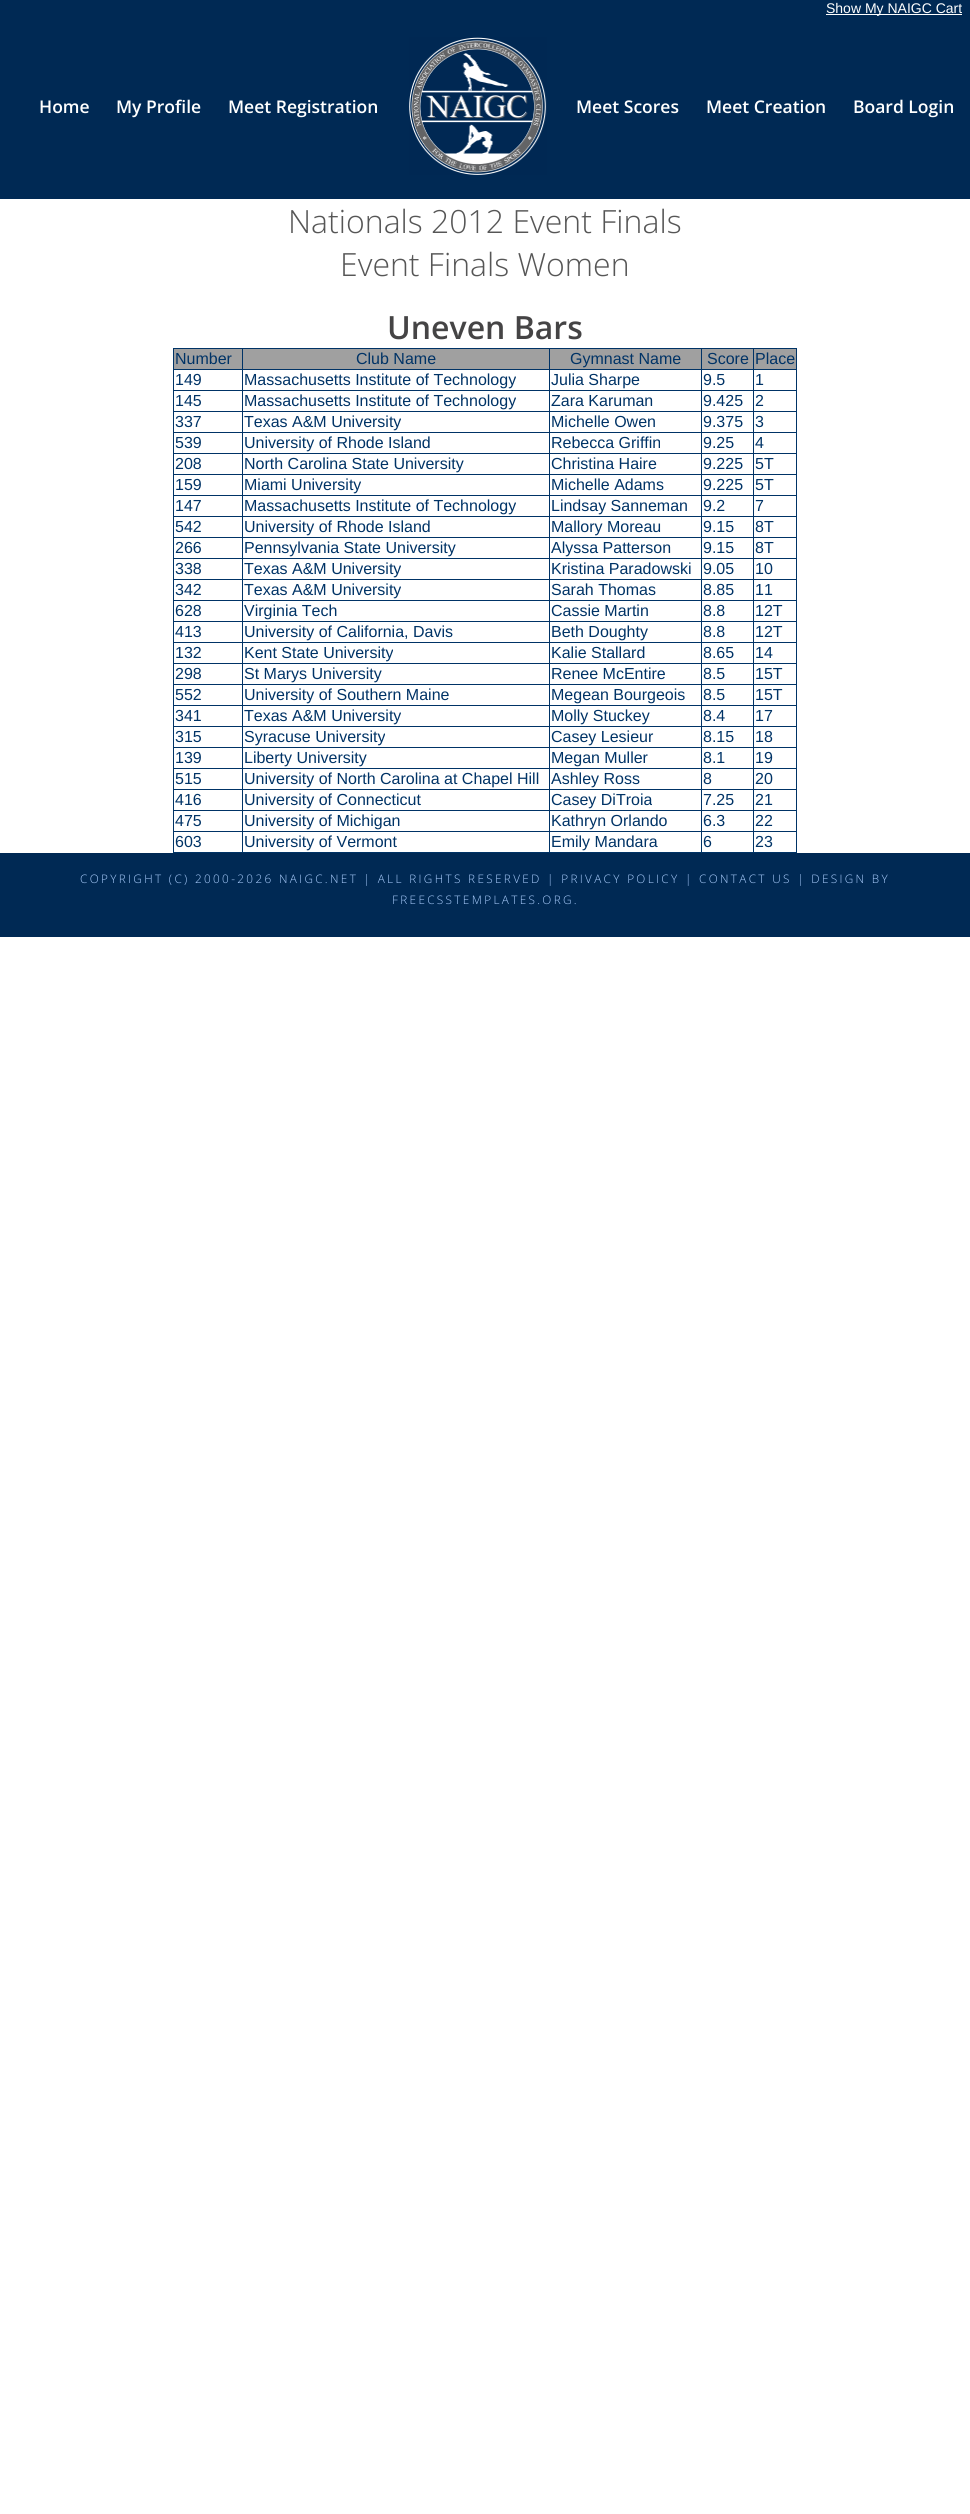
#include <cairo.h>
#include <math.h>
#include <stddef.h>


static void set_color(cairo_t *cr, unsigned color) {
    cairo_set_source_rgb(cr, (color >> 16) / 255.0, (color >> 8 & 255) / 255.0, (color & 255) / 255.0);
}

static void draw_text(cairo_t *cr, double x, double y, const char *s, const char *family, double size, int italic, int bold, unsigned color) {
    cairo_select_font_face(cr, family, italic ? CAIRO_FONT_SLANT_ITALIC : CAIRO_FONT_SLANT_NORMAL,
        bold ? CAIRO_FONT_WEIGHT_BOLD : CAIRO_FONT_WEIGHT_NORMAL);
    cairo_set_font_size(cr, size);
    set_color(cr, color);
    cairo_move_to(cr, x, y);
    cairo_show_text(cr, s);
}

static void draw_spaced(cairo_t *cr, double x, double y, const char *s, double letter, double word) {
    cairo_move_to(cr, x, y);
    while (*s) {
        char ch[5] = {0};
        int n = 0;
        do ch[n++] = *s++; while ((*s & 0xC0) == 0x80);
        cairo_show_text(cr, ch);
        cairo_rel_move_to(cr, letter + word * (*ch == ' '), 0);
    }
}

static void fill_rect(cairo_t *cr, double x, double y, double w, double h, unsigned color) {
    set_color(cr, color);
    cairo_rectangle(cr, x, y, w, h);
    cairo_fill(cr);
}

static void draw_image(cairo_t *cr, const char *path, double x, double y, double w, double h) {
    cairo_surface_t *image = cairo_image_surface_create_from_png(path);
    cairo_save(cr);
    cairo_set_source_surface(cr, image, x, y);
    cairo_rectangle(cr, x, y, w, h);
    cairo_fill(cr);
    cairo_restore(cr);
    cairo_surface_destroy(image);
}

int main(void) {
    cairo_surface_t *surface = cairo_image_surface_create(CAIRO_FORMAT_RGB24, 970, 2514);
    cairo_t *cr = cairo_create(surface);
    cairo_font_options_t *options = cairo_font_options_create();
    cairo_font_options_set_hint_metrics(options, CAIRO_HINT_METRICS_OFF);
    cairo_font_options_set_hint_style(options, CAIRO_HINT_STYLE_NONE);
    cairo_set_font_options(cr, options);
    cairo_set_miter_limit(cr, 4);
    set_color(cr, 0xFFFFFF);
    cairo_paint(cr);
    fill_rect(cr, 0, 0, 970, 199, 0x002954);
    fill_rect(cr, 826, 14, 136, 1, 0xFFFFFF);
    draw_text(cr, 826, 13, "Show My NAIGC Cart", "Liberation Sans", 14, 0, 0, 0xFFFFFF);
    draw_text(cr, 39, 113, "Home", "Open Sans SemiBold", 17.5, 0, 0, 0xFFFFFF);
    draw_text(cr, 116, 113, "My Profile", "Open Sans SemiBold", 17.5, 0, 0, 0xFFFFFF);
    draw_text(cr, 228, 113, "Meet Registration", "Open Sans SemiBold", 17.5, 0, 0, 0xFFFFFF);
    draw_image(cr, "assets/img1.png", 409, 37, 138, 138);
    draw_text(cr, 576, 113, "Meet Scores", "Open Sans SemiBold", 17.5, 0, 0, 0xFFFFFF);
    draw_text(cr, 706, 113, "Meet Creation", "Open Sans SemiBold", 17.5, 0, 0, 0xFFFFFF);
    draw_text(cr, 853, 113, "Board Login", "Open Sans SemiBold", 17.5, 0, 0, 0xFFFFFF);
    draw_text(cr, 288, 233, "Nationals 2012 Event Finals", "Open Sans Light", 32, 0, 0, 0x565656);
    draw_text(cr, 340, 276, "Event Finals Women", "Open Sans Light", 32, 0, 0, 0x565656);
    draw_text(cr, 387, 339, "Uneven Bars", "Open Sans SemiBold", 32, 0, 0, 0x454445);
    fill_rect(cr, 173, 348, 624, 1, 0x003366);
    fill_rect(cr, 796, 348, 1, 505, 0x003366);
    fill_rect(cr, 173, 852, 624, 1, 0x003366);
    fill_rect(cr, 173, 348, 1, 505, 0x003366);
    fill_rect(cr, 174, 349, 68, 20, 0xA0A0A0);
    draw_text(cr, 175, 364, "Number", "Liberation Sans", 16, 0, 0, 0x003366);
    fill_rect(cr, 243, 349, 306, 20, 0xA0A0A0);
    fill_rect(cr, 753, 369, 44, 1, 0x003366);
    fill_rect(cr, 753, 390, 44, 1, 0x003366);
    fill_rect(cr, 753, 411, 44, 1, 0x003366);
    fill_rect(cr, 753, 432, 44, 1, 0x003366);
    fill_rect(cr, 753, 453, 44, 1, 0x003366);
    fill_rect(cr, 753, 474, 44, 1, 0x003366);
    fill_rect(cr, 753, 495, 44, 1, 0x003366);
    fill_rect(cr, 753, 516, 44, 1, 0x003366);
    fill_rect(cr, 753, 537, 44, 1, 0x003366);
    fill_rect(cr, 753, 558, 44, 1, 0x003366);
    fill_rect(cr, 753, 579, 44, 1, 0x003366);
    fill_rect(cr, 753, 600, 44, 1, 0x003366);
    fill_rect(cr, 753, 621, 44, 1, 0x003366);
    fill_rect(cr, 753, 642, 44, 1, 0x003366);
    fill_rect(cr, 753, 663, 44, 1, 0x003366);
    fill_rect(cr, 753, 684, 44, 1, 0x003366);
    fill_rect(cr, 753, 705, 44, 1, 0x003366);
    fill_rect(cr, 753, 726, 44, 1, 0x003366);
    fill_rect(cr, 753, 747, 44, 1, 0x003366);
    fill_rect(cr, 753, 768, 44, 1, 0x003366);
    fill_rect(cr, 753, 789, 44, 1, 0x003366);
    fill_rect(cr, 753, 810, 44, 1, 0x003366);
    fill_rect(cr, 753, 831, 44, 1, 0x003366);
    fill_rect(cr, 753, 831, 1, 22, 0x003366);
    fill_rect(cr, 701, 831, 53, 1, 0x003366);
    fill_rect(cr, 753, 810, 1, 22, 0x003366);
    fill_rect(cr, 701, 810, 53, 1, 0x003366);
    fill_rect(cr, 753, 789, 1, 22, 0x003366);
    fill_rect(cr, 701, 789, 53, 1, 0x003366);
    fill_rect(cr, 753, 768, 1, 22, 0x003366);
    fill_rect(cr, 701, 768, 53, 1, 0x003366);
    fill_rect(cr, 753, 747, 1, 22, 0x003366);
    fill_rect(cr, 701, 747, 53, 1, 0x003366);
    fill_rect(cr, 753, 726, 1, 22, 0x003366);
    fill_rect(cr, 701, 726, 53, 1, 0x003366);
    fill_rect(cr, 753, 705, 1, 22, 0x003366);
    fill_rect(cr, 701, 705, 53, 1, 0x003366);
    fill_rect(cr, 753, 684, 1, 22, 0x003366);
    fill_rect(cr, 701, 684, 53, 1, 0x003366);
    fill_rect(cr, 753, 663, 1, 22, 0x003366);
    fill_rect(cr, 701, 663, 53, 1, 0x003366);
    fill_rect(cr, 753, 642, 1, 22, 0x003366);
    fill_rect(cr, 701, 642, 53, 1, 0x003366);
    fill_rect(cr, 753, 621, 1, 22, 0x003366);
    fill_rect(cr, 701, 621, 53, 1, 0x003366);
    fill_rect(cr, 753, 600, 1, 22, 0x003366);
    fill_rect(cr, 701, 600, 53, 1, 0x003366);
    fill_rect(cr, 753, 579, 1, 22, 0x003366);
    fill_rect(cr, 701, 579, 53, 1, 0x003366);
    fill_rect(cr, 753, 558, 1, 22, 0x003366);
    fill_rect(cr, 701, 558, 53, 1, 0x003366);
    fill_rect(cr, 753, 537, 1, 22, 0x003366);
    fill_rect(cr, 701, 537, 53, 1, 0x003366);
    fill_rect(cr, 753, 516, 1, 22, 0x003366);
    fill_rect(cr, 701, 516, 53, 1, 0x003366);
    fill_rect(cr, 753, 495, 1, 22, 0x003366);
    fill_rect(cr, 701, 495, 53, 1, 0x003366);
    fill_rect(cr, 753, 474, 1, 22, 0x003366);
    fill_rect(cr, 701, 474, 53, 1, 0x003366);
    fill_rect(cr, 753, 453, 1, 22, 0x003366);
    fill_rect(cr, 701, 453, 53, 1, 0x003366);
    fill_rect(cr, 753, 432, 1, 22, 0x003366);
    fill_rect(cr, 701, 432, 53, 1, 0x003366);
    fill_rect(cr, 753, 411, 1, 22, 0x003366);
    fill_rect(cr, 701, 411, 53, 1, 0x003366);
    fill_rect(cr, 753, 390, 1, 22, 0x003366);
    fill_rect(cr, 701, 390, 53, 1, 0x003366);
    fill_rect(cr, 753, 369, 1, 22, 0x003366);
    fill_rect(cr, 701, 369, 53, 1, 0x003366);
    fill_rect(cr, 701, 831, 1, 22, 0x003366);
    fill_rect(cr, 549, 831, 153, 1, 0x003366);
    fill_rect(cr, 701, 810, 1, 22, 0x003366);
    fill_rect(cr, 549, 810, 153, 1, 0x003366);
    fill_rect(cr, 701, 789, 1, 22, 0x003366);
    fill_rect(cr, 549, 789, 153, 1, 0x003366);
    fill_rect(cr, 701, 768, 1, 22, 0x003366);
    fill_rect(cr, 549, 768, 153, 1, 0x003366);
    fill_rect(cr, 701, 747, 1, 22, 0x003366);
    fill_rect(cr, 549, 747, 153, 1, 0x003366);
    fill_rect(cr, 701, 726, 1, 22, 0x003366);
    fill_rect(cr, 549, 726, 153, 1, 0x003366);
    fill_rect(cr, 701, 705, 1, 22, 0x003366);
    fill_rect(cr, 549, 705, 153, 1, 0x003366);
    fill_rect(cr, 701, 684, 1, 22, 0x003366);
    fill_rect(cr, 549, 684, 153, 1, 0x003366);
    fill_rect(cr, 701, 663, 1, 22, 0x003366);
    fill_rect(cr, 549, 663, 153, 1, 0x003366);
    fill_rect(cr, 701, 642, 1, 22, 0x003366);
    fill_rect(cr, 549, 642, 153, 1, 0x003366);
    fill_rect(cr, 701, 621, 1, 22, 0x003366);
    fill_rect(cr, 549, 621, 153, 1, 0x003366);
    fill_rect(cr, 701, 600, 1, 22, 0x003366);
    fill_rect(cr, 549, 600, 153, 1, 0x003366);
    fill_rect(cr, 701, 579, 1, 22, 0x003366);
    fill_rect(cr, 549, 579, 153, 1, 0x003366);
    fill_rect(cr, 701, 558, 1, 22, 0x003366);
    fill_rect(cr, 549, 558, 153, 1, 0x003366);
    fill_rect(cr, 701, 537, 1, 22, 0x003366);
    fill_rect(cr, 549, 537, 153, 1, 0x003366);
    fill_rect(cr, 701, 516, 1, 22, 0x003366);
    fill_rect(cr, 549, 516, 153, 1, 0x003366);
    fill_rect(cr, 701, 495, 1, 22, 0x003366);
    fill_rect(cr, 549, 495, 153, 1, 0x003366);
    fill_rect(cr, 701, 474, 1, 22, 0x003366);
    fill_rect(cr, 549, 474, 153, 1, 0x003366);
    fill_rect(cr, 701, 453, 1, 22, 0x003366);
    fill_rect(cr, 549, 453, 153, 1, 0x003366);
    fill_rect(cr, 701, 432, 1, 22, 0x003366);
    fill_rect(cr, 549, 432, 153, 1, 0x003366);
    fill_rect(cr, 701, 411, 1, 22, 0x003366);
    fill_rect(cr, 549, 411, 153, 1, 0x003366);
    fill_rect(cr, 701, 390, 1, 22, 0x003366);
    fill_rect(cr, 549, 390, 153, 1, 0x003366);
    fill_rect(cr, 701, 369, 1, 22, 0x003366);
    fill_rect(cr, 549, 369, 153, 1, 0x003366);
    fill_rect(cr, 549, 831, 1, 22, 0x003366);
    fill_rect(cr, 242, 831, 308, 1, 0x003366);
    fill_rect(cr, 549, 810, 1, 22, 0x003366);
    fill_rect(cr, 242, 810, 308, 1, 0x003366);
    fill_rect(cr, 549, 789, 1, 22, 0x003366);
    fill_rect(cr, 242, 789, 308, 1, 0x003366);
    fill_rect(cr, 549, 768, 1, 22, 0x003366);
    fill_rect(cr, 242, 768, 308, 1, 0x003366);
    fill_rect(cr, 549, 747, 1, 22, 0x003366);
    fill_rect(cr, 242, 747, 308, 1, 0x003366);
    fill_rect(cr, 549, 726, 1, 22, 0x003366);
    fill_rect(cr, 242, 726, 308, 1, 0x003366);
    fill_rect(cr, 549, 705, 1, 22, 0x003366);
    fill_rect(cr, 242, 705, 308, 1, 0x003366);
    fill_rect(cr, 549, 684, 1, 22, 0x003366);
    fill_rect(cr, 242, 684, 308, 1, 0x003366);
    fill_rect(cr, 549, 663, 1, 22, 0x003366);
    fill_rect(cr, 242, 663, 308, 1, 0x003366);
    fill_rect(cr, 549, 642, 1, 22, 0x003366);
    fill_rect(cr, 242, 642, 308, 1, 0x003366);
    fill_rect(cr, 549, 621, 1, 22, 0x003366);
    fill_rect(cr, 242, 621, 308, 1, 0x003366);
    fill_rect(cr, 549, 600, 1, 22, 0x003366);
    fill_rect(cr, 242, 600, 308, 1, 0x003366);
    fill_rect(cr, 549, 579, 1, 22, 0x003366);
    fill_rect(cr, 242, 579, 308, 1, 0x003366);
    fill_rect(cr, 549, 558, 1, 22, 0x003366);
    fill_rect(cr, 242, 558, 308, 1, 0x003366);
    fill_rect(cr, 549, 537, 1, 22, 0x003366);
    fill_rect(cr, 242, 537, 308, 1, 0x003366);
    fill_rect(cr, 549, 516, 1, 22, 0x003366);
    fill_rect(cr, 242, 516, 308, 1, 0x003366);
    fill_rect(cr, 549, 495, 1, 22, 0x003366);
    fill_rect(cr, 242, 495, 308, 1, 0x003366);
    fill_rect(cr, 549, 474, 1, 22, 0x003366);
    fill_rect(cr, 242, 474, 308, 1, 0x003366);
    fill_rect(cr, 549, 453, 1, 22, 0x003366);
    fill_rect(cr, 242, 453, 308, 1, 0x003366);
    fill_rect(cr, 549, 432, 1, 22, 0x003366);
    fill_rect(cr, 242, 432, 308, 1, 0x003366);
    fill_rect(cr, 549, 411, 1, 22, 0x003366);
    fill_rect(cr, 242, 411, 308, 1, 0x003366);
    fill_rect(cr, 549, 390, 1, 22, 0x003366);
    fill_rect(cr, 242, 390, 308, 1, 0x003366);
    fill_rect(cr, 549, 369, 1, 22, 0x003366);
    fill_rect(cr, 242, 369, 308, 1, 0x003366);
    fill_rect(cr, 242, 831, 1, 22, 0x003366);
    fill_rect(cr, 173, 831, 70, 1, 0x003366);
    fill_rect(cr, 242, 810, 1, 22, 0x003366);
    fill_rect(cr, 173, 810, 70, 1, 0x003366);
    fill_rect(cr, 242, 789, 1, 22, 0x003366);
    fill_rect(cr, 173, 789, 70, 1, 0x003366);
    fill_rect(cr, 242, 768, 1, 22, 0x003366);
    fill_rect(cr, 173, 768, 70, 1, 0x003366);
    fill_rect(cr, 242, 747, 1, 22, 0x003366);
    fill_rect(cr, 173, 747, 70, 1, 0x003366);
    fill_rect(cr, 242, 726, 1, 22, 0x003366);
    fill_rect(cr, 173, 726, 70, 1, 0x003366);
    fill_rect(cr, 242, 705, 1, 22, 0x003366);
    fill_rect(cr, 173, 705, 70, 1, 0x003366);
    fill_rect(cr, 242, 684, 1, 22, 0x003366);
    fill_rect(cr, 173, 684, 70, 1, 0x003366);
    fill_rect(cr, 242, 663, 1, 22, 0x003366);
    fill_rect(cr, 173, 663, 70, 1, 0x003366);
    fill_rect(cr, 242, 642, 1, 22, 0x003366);
    fill_rect(cr, 173, 642, 70, 1, 0x003366);
    fill_rect(cr, 242, 621, 1, 22, 0x003366);
    fill_rect(cr, 173, 621, 70, 1, 0x003366);
    fill_rect(cr, 242, 600, 1, 22, 0x003366);
    fill_rect(cr, 173, 600, 70, 1, 0x003366);
    fill_rect(cr, 242, 579, 1, 22, 0x003366);
    fill_rect(cr, 173, 579, 70, 1, 0x003366);
    fill_rect(cr, 242, 558, 1, 22, 0x003366);
    fill_rect(cr, 173, 558, 70, 1, 0x003366);
    fill_rect(cr, 242, 537, 1, 22, 0x003366);
    fill_rect(cr, 173, 537, 70, 1, 0x003366);
    fill_rect(cr, 242, 516, 1, 22, 0x003366);
    fill_rect(cr, 173, 516, 70, 1, 0x003366);
    fill_rect(cr, 242, 495, 1, 22, 0x003366);
    fill_rect(cr, 173, 495, 70, 1, 0x003366);
    fill_rect(cr, 242, 474, 1, 22, 0x003366);
    fill_rect(cr, 173, 474, 70, 1, 0x003366);
    fill_rect(cr, 242, 453, 1, 22, 0x003366);
    fill_rect(cr, 173, 453, 70, 1, 0x003366);
    fill_rect(cr, 242, 432, 1, 22, 0x003366);
    fill_rect(cr, 173, 432, 70, 1, 0x003366);
    fill_rect(cr, 242, 411, 1, 22, 0x003366);
    fill_rect(cr, 173, 411, 70, 1, 0x003366);
    fill_rect(cr, 242, 390, 1, 22, 0x003366);
    fill_rect(cr, 173, 390, 70, 1, 0x003366);
    fill_rect(cr, 242, 369, 1, 22, 0x003366);
    fill_rect(cr, 173, 369, 70, 1, 0x003366);
    fill_rect(cr, 242, 348, 1, 22, 0x003366);
    draw_text(cr, 356, 364, "Club Name", "Liberation Sans", 16, 0, 0, 0x003366);
    fill_rect(cr, 550, 349, 151, 20, 0xA0A0A0);
    fill_rect(cr, 549, 348, 1, 22, 0x003366);
    draw_text(cr, 570, 364, "Gymnast Name", "Liberation Sans", 16, 0, 0, 0x003366);
    fill_rect(cr, 702, 349, 51, 20, 0xA0A0A0);
    fill_rect(cr, 701, 348, 1, 22, 0x003366);
    draw_text(cr, 707, 364, "Score", "Liberation Sans", 16, 0, 0, 0x003366);
    fill_rect(cr, 754, 349, 42, 20, 0xA0A0A0);
    fill_rect(cr, 753, 348, 1, 22, 0x003366);
    draw_text(cr, 755, 364, "Place", "Liberation Sans", 16, 0, 0, 0x003366);
    draw_text(cr, 175, 385, "149", "Liberation Sans", 16, 0, 0, 0x003366);
    draw_text(cr, 244, 385, "Massachusetts Institute of Technology", "Liberation Sans", 16, 0, 0, 0x003366);
    draw_text(cr, 551, 385, "Julia Sharpe", "Liberation Sans", 16, 0, 0, 0x003366);
    draw_text(cr, 703, 385, "9.5", "Liberation Sans", 16, 0, 0, 0x003366);
    draw_text(cr, 755, 385, "1", "Liberation Sans", 16, 0, 0, 0x003366);
    draw_text(cr, 175, 406, "145", "Liberation Sans", 16, 0, 0, 0x003366);
    draw_text(cr, 244, 406, "Massachusetts Institute of Technology", "Liberation Sans", 16, 0, 0, 0x003366);
    draw_text(cr, 551, 406, "Zara Karuman", "Liberation Sans", 16, 0, 0, 0x003366);
    draw_text(cr, 703, 406, "9.425", "Liberation Sans", 16, 0, 0, 0x003366);
    draw_text(cr, 755, 406, "2", "Liberation Sans", 16, 0, 0, 0x003366);
    draw_text(cr, 175, 427, "337", "Liberation Sans", 16, 0, 0, 0x003366);
    draw_text(cr, 244, 427, "Texas A&M University", "Liberation Sans", 16, 0, 0, 0x003366);
    draw_text(cr, 551, 427, "Michelle Owen", "Liberation Sans", 16, 0, 0, 0x003366);
    draw_text(cr, 703, 427, "9.375", "Liberation Sans", 16, 0, 0, 0x003366);
    draw_text(cr, 755, 427, "3", "Liberation Sans", 16, 0, 0, 0x003366);
    draw_text(cr, 175, 448, "539", "Liberation Sans", 16, 0, 0, 0x003366);
    draw_text(cr, 244, 448, "University of Rhode Island", "Liberation Sans", 16, 0, 0, 0x003366);
    draw_text(cr, 551, 448, "Rebecca Griffin", "Liberation Sans", 16, 0, 0, 0x003366);
    draw_text(cr, 703, 448, "9.25", "Liberation Sans", 16, 0, 0, 0x003366);
    draw_text(cr, 755, 448, "4", "Liberation Sans", 16, 0, 0, 0x003366);
    draw_text(cr, 175, 469, "208", "Liberation Sans", 16, 0, 0, 0x003366);
    draw_text(cr, 244, 469, "North Carolina State University", "Liberation Sans", 16, 0, 0, 0x003366);
    draw_text(cr, 551, 469, "Christina Haire", "Liberation Sans", 16, 0, 0, 0x003366);
    draw_text(cr, 703, 469, "9.225", "Liberation Sans", 16, 0, 0, 0x003366);
    draw_text(cr, 755, 469, "5T", "Liberation Sans", 16, 0, 0, 0x003366);
    draw_text(cr, 175, 490, "159", "Liberation Sans", 16, 0, 0, 0x003366);
    draw_text(cr, 244, 490, "Miami University", "Liberation Sans", 16, 0, 0, 0x003366);
    draw_text(cr, 551, 490, "Michelle Adams", "Liberation Sans", 16, 0, 0, 0x003366);
    draw_text(cr, 703, 490, "9.225", "Liberation Sans", 16, 0, 0, 0x003366);
    draw_text(cr, 755, 490, "5T", "Liberation Sans", 16, 0, 0, 0x003366);
    draw_text(cr, 175, 511, "147", "Liberation Sans", 16, 0, 0, 0x003366);
    draw_text(cr, 244, 511, "Massachusetts Institute of Technology", "Liberation Sans", 16, 0, 0, 0x003366);
    draw_text(cr, 551, 511, "Lindsay Sanneman", "Liberation Sans", 16, 0, 0, 0x003366);
    draw_text(cr, 703, 511, "9.2", "Liberation Sans", 16, 0, 0, 0x003366);
    draw_text(cr, 755, 511, "7", "Liberation Sans", 16, 0, 0, 0x003366);
    draw_text(cr, 175, 532, "542", "Liberation Sans", 16, 0, 0, 0x003366);
    draw_text(cr, 244, 532, "University of Rhode Island", "Liberation Sans", 16, 0, 0, 0x003366);
    draw_text(cr, 551, 532, "Mallory Moreau", "Liberation Sans", 16, 0, 0, 0x003366);
    draw_text(cr, 703, 532, "9.15", "Liberation Sans", 16, 0, 0, 0x003366);
    draw_text(cr, 755, 532, "8T", "Liberation Sans", 16, 0, 0, 0x003366);
    draw_text(cr, 175, 553, "266", "Liberation Sans", 16, 0, 0, 0x003366);
    draw_text(cr, 244, 553, "Pennsylvania State University", "Liberation Sans", 16, 0, 0, 0x003366);
    draw_text(cr, 551, 553, "Alyssa Patterson", "Liberation Sans", 16, 0, 0, 0x003366);
    draw_text(cr, 703, 553, "9.15", "Liberation Sans", 16, 0, 0, 0x003366);
    draw_text(cr, 755, 553, "8T", "Liberation Sans", 16, 0, 0, 0x003366);
    draw_text(cr, 175, 574, "338", "Liberation Sans", 16, 0, 0, 0x003366);
    draw_text(cr, 244, 574, "Texas A&M University", "Liberation Sans", 16, 0, 0, 0x003366);
    draw_text(cr, 551, 574, "Kristina Paradowski", "Liberation Sans", 16, 0, 0, 0x003366);
    draw_text(cr, 703, 574, "9.05", "Liberation Sans", 16, 0, 0, 0x003366);
    draw_text(cr, 755, 574, "10", "Liberation Sans", 16, 0, 0, 0x003366);
    draw_text(cr, 175, 595, "342", "Liberation Sans", 16, 0, 0, 0x003366);
    draw_text(cr, 244, 595, "Texas A&M University", "Liberation Sans", 16, 0, 0, 0x003366);
    draw_text(cr, 551, 595, "Sarah Thomas", "Liberation Sans", 16, 0, 0, 0x003366);
    draw_text(cr, 703, 595, "8.85", "Liberation Sans", 16, 0, 0, 0x003366);
    draw_text(cr, 755, 595, "11", "Liberation Sans", 16, 0, 0, 0x003366);
    draw_text(cr, 175, 616, "628", "Liberation Sans", 16, 0, 0, 0x003366);
    draw_text(cr, 244, 616, "Virginia Tech", "Liberation Sans", 16, 0, 0, 0x003366);
    draw_text(cr, 551, 616, "Cassie Martin", "Liberation Sans", 16, 0, 0, 0x003366);
    draw_text(cr, 703, 616, "8.8", "Liberation Sans", 16, 0, 0, 0x003366);
    draw_text(cr, 755, 616, "12T", "Liberation Sans", 16, 0, 0, 0x003366);
    draw_text(cr, 175, 637, "413", "Liberation Sans", 16, 0, 0, 0x003366);
    draw_text(cr, 244, 637, "University of California, Davis", "Liberation Sans", 16, 0, 0, 0x003366);
    draw_text(cr, 551, 637, "Beth Doughty", "Liberation Sans", 16, 0, 0, 0x003366);
    draw_text(cr, 703, 637, "8.8", "Liberation Sans", 16, 0, 0, 0x003366);
    draw_text(cr, 755, 637, "12T", "Liberation Sans", 16, 0, 0, 0x003366);
    draw_text(cr, 175, 658, "132", "Liberation Sans", 16, 0, 0, 0x003366);
    draw_text(cr, 244, 658, "Kent State University", "Liberation Sans", 16, 0, 0, 0x003366);
    draw_text(cr, 551, 658, "Kalie Stallard", "Liberation Sans", 16, 0, 0, 0x003366);
    draw_text(cr, 703, 658, "8.65", "Liberation Sans", 16, 0, 0, 0x003366);
    draw_text(cr, 755, 658, "14", "Liberation Sans", 16, 0, 0, 0x003366);
    draw_text(cr, 175, 679, "298", "Liberation Sans", 16, 0, 0, 0x003366);
    draw_text(cr, 244, 679, "St Marys University", "Liberation Sans", 16, 0, 0, 0x003366);
    draw_text(cr, 551, 679, "Renee McEntire", "Liberation Sans", 16, 0, 0, 0x003366);
    draw_text(cr, 703, 679, "8.5", "Liberation Sans", 16, 0, 0, 0x003366);
    draw_text(cr, 755, 679, "15T", "Liberation Sans", 16, 0, 0, 0x003366);
    draw_text(cr, 175, 700, "552", "Liberation Sans", 16, 0, 0, 0x003366);
    draw_text(cr, 244, 700, "University of Southern Maine", "Liberation Sans", 16, 0, 0, 0x003366);
    draw_text(cr, 551, 700, "Megean Bourgeois", "Liberation Sans", 16, 0, 0, 0x003366);
    draw_text(cr, 703, 700, "8.5", "Liberation Sans", 16, 0, 0, 0x003366);
    draw_text(cr, 755, 700, "15T", "Liberation Sans", 16, 0, 0, 0x003366);
    draw_text(cr, 175, 721, "341", "Liberation Sans", 16, 0, 0, 0x003366);
    draw_text(cr, 244, 721, "Texas A&M University", "Liberation Sans", 16, 0, 0, 0x003366);
    draw_text(cr, 551, 721, "Molly Stuckey", "Liberation Sans", 16, 0, 0, 0x003366);
    draw_text(cr, 703, 721, "8.4", "Liberation Sans", 16, 0, 0, 0x003366);
    draw_text(cr, 755, 721, "17", "Liberation Sans", 16, 0, 0, 0x003366);
    draw_text(cr, 175, 742, "315", "Liberation Sans", 16, 0, 0, 0x003366);
    draw_text(cr, 244, 742, "Syracuse University", "Liberation Sans", 16, 0, 0, 0x003366);
    draw_text(cr, 551, 742, "Casey Lesieur", "Liberation Sans", 16, 0, 0, 0x003366);
    draw_text(cr, 703, 742, "8.15", "Liberation Sans", 16, 0, 0, 0x003366);
    draw_text(cr, 755, 742, "18", "Liberation Sans", 16, 0, 0, 0x003366);
    draw_text(cr, 175, 763, "139", "Liberation Sans", 16, 0, 0, 0x003366);
    draw_text(cr, 244, 763, "Liberty University", "Liberation Sans", 16, 0, 0, 0x003366);
    draw_text(cr, 551, 763, "Megan Muller", "Liberation Sans", 16, 0, 0, 0x003366);
    draw_text(cr, 703, 763, "8.1", "Liberation Sans", 16, 0, 0, 0x003366);
    draw_text(cr, 755, 763, "19", "Liberation Sans", 16, 0, 0, 0x003366);
    draw_text(cr, 175, 784, "515", "Liberation Sans", 16, 0, 0, 0x003366);
    draw_text(cr, 244, 784, "University of North Carolina at Chapel Hill", "Liberation Sans", 16, 0, 0, 0x003366);
    draw_text(cr, 551, 784, "Ashley Ross", "Liberation Sans", 16, 0, 0, 0x003366);
    draw_text(cr, 703, 784, "8", "Liberation Sans", 16, 0, 0, 0x003366);
    draw_text(cr, 755, 784, "20", "Liberation Sans", 16, 0, 0, 0x003366);
    draw_text(cr, 175, 805, "416", "Liberation Sans", 16, 0, 0, 0x003366);
    draw_text(cr, 244, 805, "University of Connecticut", "Liberation Sans", 16, 0, 0, 0x003366);
    draw_text(cr, 551, 805, "Casey DiTroia", "Liberation Sans", 16, 0, 0, 0x003366);
    draw_text(cr, 703, 805, "7.25", "Liberation Sans", 16, 0, 0, 0x003366);
    draw_text(cr, 755, 805, "21", "Liberation Sans", 16, 0, 0, 0x003366);
    draw_text(cr, 175, 826, "475", "Liberation Sans", 16, 0, 0, 0x003366);
    draw_text(cr, 244, 826, "University of Michigan", "Liberation Sans", 16, 0, 0, 0x003366);
    draw_text(cr, 551, 826, "Kathryn Orlando", "Liberation Sans", 16, 0, 0, 0x003366);
    draw_text(cr, 703, 826, "6.3", "Liberation Sans", 16, 0, 0, 0x003366);
    draw_text(cr, 755, 826, "22", "Liberation Sans", 16, 0, 0, 0x003366);
    draw_text(cr, 175, 847, "603", "Liberation Sans", 16, 0, 0, 0x003366);
    draw_text(cr, 244, 847, "University of Vermont", "Liberation Sans", 16, 0, 0, 0x003366);
    draw_text(cr, 551, 847, "Emily Mandara", "Liberation Sans", 16, 0, 0, 0x003366);
    draw_text(cr, 703, 847, "6", "Liberation Sans", 16, 0, 0, 0x003366);
    draw_text(cr, 755, 847, "23", "Liberation Sans", 16, 0, 0, 0x003366);
    fill_rect(cr, 0, 853, 970, 84, 0x002954);
    cairo_select_font_face(cr, "Open Sans Light", CAIRO_FONT_SLANT_NORMAL, CAIRO_FONT_WEIGHT_NORMAL);
    cairo_set_font_size(cr, 11.73);
    set_color(cr, 0xACCFFF);
    draw_spaced(cr, 80, 883, "COPYRIGHT (C) 2000-2026 NAIGC.NET | ALL RIGHTS RESERVED | PRIVACY POLICY | CONTACT US | DESIGN BY", 2.35, 0);
    draw_spaced(cr, 392, 904, "FREECSSTEMPLATES.ORG.", 2.35, 0);
    cairo_surface_write_to_png(surface, "output.png");
    cairo_font_options_destroy(options);
    cairo_destroy(cr);
    cairo_surface_destroy(surface);
    return 0;
}
